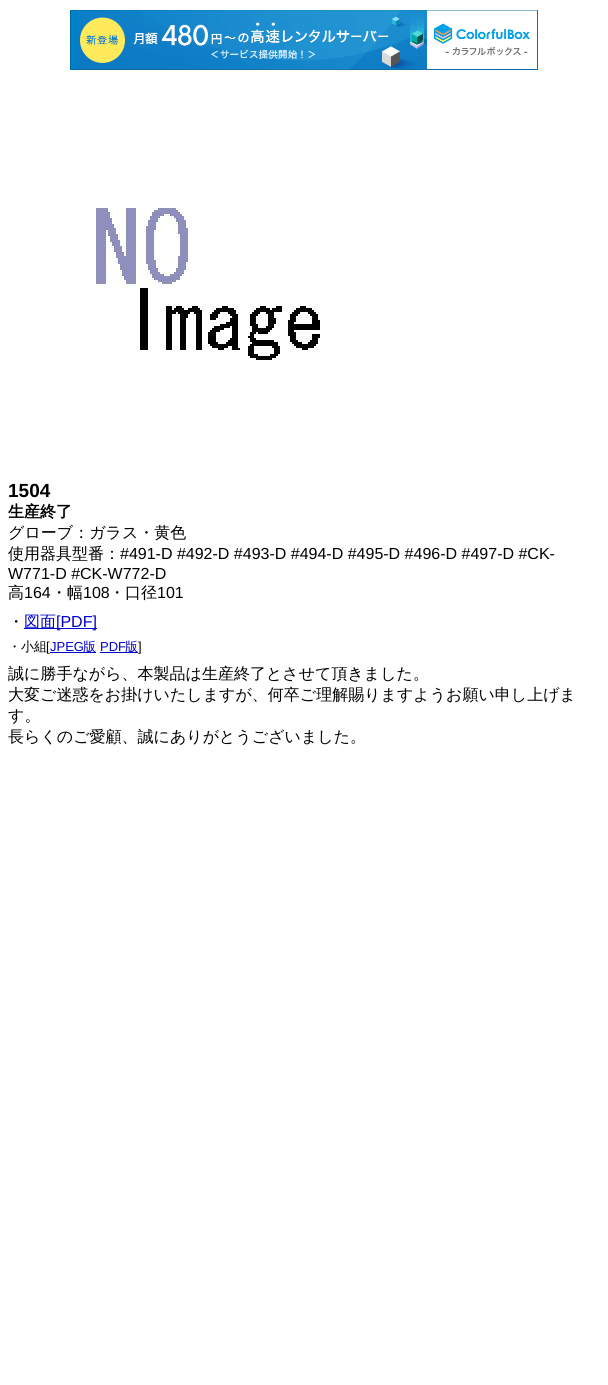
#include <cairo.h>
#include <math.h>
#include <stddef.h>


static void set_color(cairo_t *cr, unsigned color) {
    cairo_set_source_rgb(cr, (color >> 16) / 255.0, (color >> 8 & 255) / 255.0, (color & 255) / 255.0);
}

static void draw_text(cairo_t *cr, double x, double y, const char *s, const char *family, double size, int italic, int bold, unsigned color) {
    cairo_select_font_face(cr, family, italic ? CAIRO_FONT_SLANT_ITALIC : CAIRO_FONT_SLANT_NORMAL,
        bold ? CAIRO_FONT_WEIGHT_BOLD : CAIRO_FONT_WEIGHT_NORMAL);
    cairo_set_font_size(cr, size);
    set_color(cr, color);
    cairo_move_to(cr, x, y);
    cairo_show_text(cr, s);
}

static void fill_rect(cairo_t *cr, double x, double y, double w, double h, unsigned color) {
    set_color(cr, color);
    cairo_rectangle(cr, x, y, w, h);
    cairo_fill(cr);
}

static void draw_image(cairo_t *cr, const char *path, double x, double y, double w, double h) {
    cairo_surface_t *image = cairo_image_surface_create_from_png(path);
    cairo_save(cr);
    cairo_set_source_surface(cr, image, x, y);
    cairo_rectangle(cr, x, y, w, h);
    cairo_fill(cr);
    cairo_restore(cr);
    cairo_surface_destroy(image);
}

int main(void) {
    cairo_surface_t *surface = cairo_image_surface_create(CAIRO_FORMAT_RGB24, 608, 1385);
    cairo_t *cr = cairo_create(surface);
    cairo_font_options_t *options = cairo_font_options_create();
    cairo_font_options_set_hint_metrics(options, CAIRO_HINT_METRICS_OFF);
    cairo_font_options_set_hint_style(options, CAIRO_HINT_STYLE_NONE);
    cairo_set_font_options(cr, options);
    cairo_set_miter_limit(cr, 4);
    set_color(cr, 0xFFFFFF);
    cairo_paint(cr);
    draw_image(cr, "assets/img1.png", 70, 10, 468, 60);
    draw_image(cr, "assets/img2.png", 88, 208, 232, 152);
    draw_text(cr, 8, 497, "1504", "Liberation Sans", 19, 0, 1, 0x000000);
    draw_text(cr, 8, 517, "生産終了", "WenQuanYi Zen Hei", 16, 0, 1, 0x000000);
    draw_text(cr, 8, 538, "グローブ：ガラス・黄色", "WenQuanYi Zen Hei Medium", 16, 0, 0, 0x000000);
    draw_text(cr, 8, 559, "使用器具型番：", "WenQuanYi Zen Hei Medium", 16, 0, 0, 0x000000);
    draw_text(cr, 120, 559, "#491-D #492-D #493-D #494-D #495-D #496-D #497-D #CK-", "Liberation Sans", 16, 0, 0, 0x000000);
    draw_text(cr, 8, 579, "W771-D #CK-W772-D", "Liberation Sans", 16, 0, 0, 0x000000);
    draw_text(cr, 8, 598, "高", "WenQuanYi Zen Hei Medium", 16, 0, 0, 0x000000);
    draw_text(cr, 24, 598, "164", "Liberation Sans", 16, 0, 0, 0x000000);
    draw_text(cr, 51, 598, "・幅", "WenQuanYi Zen Hei Medium", 16, 0, 0, 0x000000);
    draw_text(cr, 83, 598, "108", "Liberation Sans", 16, 0, 0, 0x000000);
    draw_text(cr, 109, 598, "・口径", "WenQuanYi Zen Hei Medium", 16, 0, 0, 0x000000);
    draw_text(cr, 157, 598, "101", "Liberation Sans", 16, 0, 0, 0x000000);
    draw_text(cr, 8, 627, "・", "WenQuanYi Zen Hei Medium", 16, 0, 0, 0x000000);
    fill_rect(cr, 24, 628, 73, 1, 0x0000CC);
    draw_text(cr, 24, 627, "図面", "WenQuanYi Zen Hei Medium", 16, 0, 0, 0x0000CC);
    draw_text(cr, 56, 627, "[PDF]", "Liberation Sans", 16, 0, 0, 0x0000CC);
    draw_text(cr, 8, 651, "・小組", "WenQuanYi Zen Hei Medium", 13, 0, 0, 0x000000);
    draw_text(cr, 46, 651, "[", "Liberation Sans", 13, 0, 0, 0x000000);
    draw_text(cr, 50, 651, "JPEG", "Liberation Sans", 13, 0, 0, 0x0000CC);
    fill_rect(cr, 50, 652, 46, 1, 0x0000CC);
    draw_text(cr, 83, 651, "版", "WenQuanYi Zen Hei Medium", 13, 0, 0, 0x0000CC);
    draw_text(cr, 100, 651, "PDF", "Liberation Sans", 13, 0, 0, 0x0000CC);
    fill_rect(cr, 100, 652, 38, 1, 0x0000CC);
    draw_text(cr, 125, 651, "版", "WenQuanYi Zen Hei Medium", 13, 0, 0, 0x0000CC);
    draw_text(cr, 138, 651, "]", "Liberation Sans", 13, 0, 0, 0x000000);
    draw_text(cr, 8, 679, "誠に勝手ながら、本製品は生産終了とさせて頂きました。", "WenQuanYi Zen Hei Medium", 16, 0, 0, 0x000000);
    draw_text(cr, 8, 700, "大変ご迷惑をお掛けいたしますが、何卒ご理解賜りますようお願い申し上げま", "WenQuanYi Zen Hei Medium", 16, 0, 0, 0x000000);
    draw_text(cr, 8, 721, "す。", "WenQuanYi Zen Hei Medium", 16, 0, 0, 0x000000);
    draw_text(cr, 8, 742, "長らくのご愛顧、誠にありがとうございました。", "WenQuanYi Zen Hei Medium", 16, 0, 0, 0x000000);
    cairo_surface_write_to_png(surface, "output.png");
    cairo_font_options_destroy(options);
    cairo_destroy(cr);
    cairo_surface_destroy(surface);
    return 0;
}
